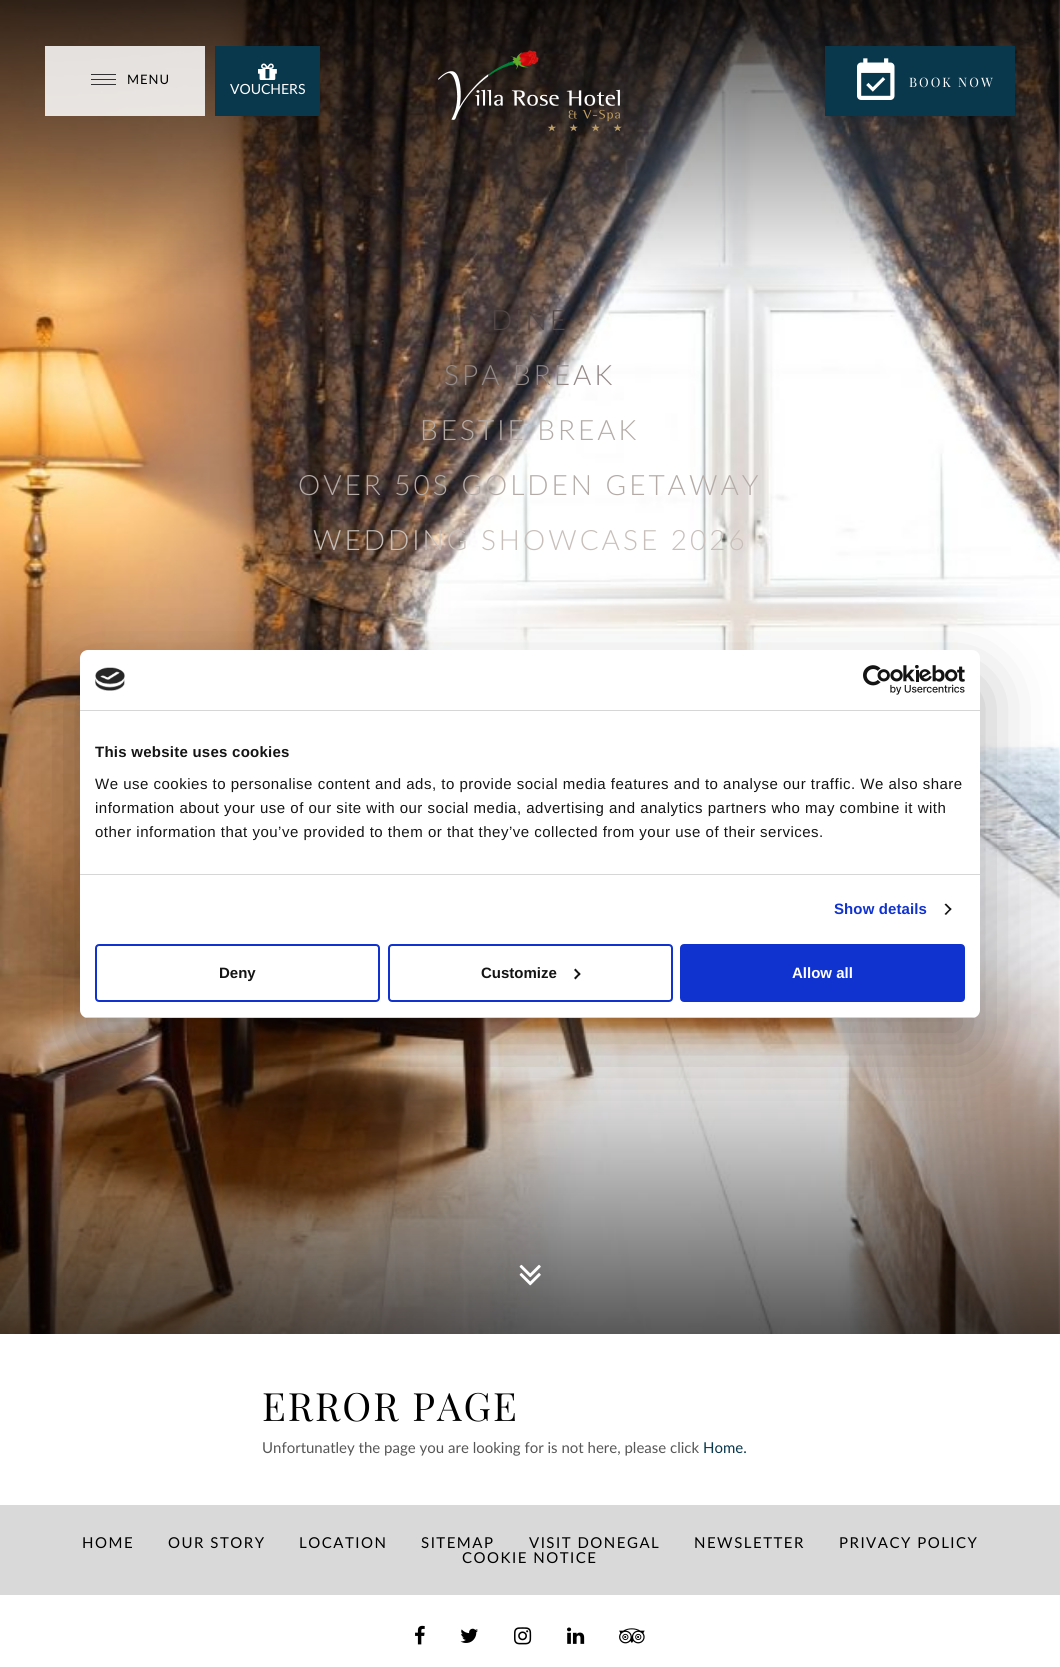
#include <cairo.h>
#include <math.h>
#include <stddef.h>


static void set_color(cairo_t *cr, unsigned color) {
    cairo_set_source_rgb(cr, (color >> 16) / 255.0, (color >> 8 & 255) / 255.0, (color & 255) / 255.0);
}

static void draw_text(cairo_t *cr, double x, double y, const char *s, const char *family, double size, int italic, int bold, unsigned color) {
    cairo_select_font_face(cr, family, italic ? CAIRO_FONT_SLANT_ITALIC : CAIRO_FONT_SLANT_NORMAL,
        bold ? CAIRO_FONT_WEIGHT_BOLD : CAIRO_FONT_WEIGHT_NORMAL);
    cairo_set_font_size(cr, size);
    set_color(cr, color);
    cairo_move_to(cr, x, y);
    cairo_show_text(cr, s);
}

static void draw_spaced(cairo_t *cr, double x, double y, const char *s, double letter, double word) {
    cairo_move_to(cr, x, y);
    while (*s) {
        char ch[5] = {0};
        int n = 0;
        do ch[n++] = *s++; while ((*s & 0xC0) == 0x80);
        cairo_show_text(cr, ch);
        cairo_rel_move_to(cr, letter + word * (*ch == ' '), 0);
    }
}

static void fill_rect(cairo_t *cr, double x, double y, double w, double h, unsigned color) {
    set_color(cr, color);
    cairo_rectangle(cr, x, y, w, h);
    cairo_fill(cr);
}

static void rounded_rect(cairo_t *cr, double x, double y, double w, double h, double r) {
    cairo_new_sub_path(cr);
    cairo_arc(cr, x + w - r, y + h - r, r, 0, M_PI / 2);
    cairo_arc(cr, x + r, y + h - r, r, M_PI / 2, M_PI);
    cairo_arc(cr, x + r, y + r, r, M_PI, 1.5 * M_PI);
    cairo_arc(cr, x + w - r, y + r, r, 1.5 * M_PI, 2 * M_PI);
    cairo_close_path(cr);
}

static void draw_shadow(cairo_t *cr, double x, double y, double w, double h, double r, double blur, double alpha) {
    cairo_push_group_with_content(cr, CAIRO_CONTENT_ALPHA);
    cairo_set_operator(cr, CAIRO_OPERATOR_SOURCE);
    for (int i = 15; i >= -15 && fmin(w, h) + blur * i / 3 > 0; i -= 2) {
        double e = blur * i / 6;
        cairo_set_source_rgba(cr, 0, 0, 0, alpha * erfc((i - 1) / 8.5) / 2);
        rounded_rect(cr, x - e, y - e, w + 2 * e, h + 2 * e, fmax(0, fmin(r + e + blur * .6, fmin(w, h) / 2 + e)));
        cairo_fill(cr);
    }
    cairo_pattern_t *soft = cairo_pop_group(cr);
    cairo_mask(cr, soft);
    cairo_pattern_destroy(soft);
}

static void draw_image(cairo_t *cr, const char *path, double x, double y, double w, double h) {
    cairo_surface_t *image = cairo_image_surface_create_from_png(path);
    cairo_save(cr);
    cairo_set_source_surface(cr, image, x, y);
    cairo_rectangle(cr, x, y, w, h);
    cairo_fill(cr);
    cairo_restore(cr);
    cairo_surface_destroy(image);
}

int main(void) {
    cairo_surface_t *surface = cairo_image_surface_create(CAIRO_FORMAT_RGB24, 1060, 1667);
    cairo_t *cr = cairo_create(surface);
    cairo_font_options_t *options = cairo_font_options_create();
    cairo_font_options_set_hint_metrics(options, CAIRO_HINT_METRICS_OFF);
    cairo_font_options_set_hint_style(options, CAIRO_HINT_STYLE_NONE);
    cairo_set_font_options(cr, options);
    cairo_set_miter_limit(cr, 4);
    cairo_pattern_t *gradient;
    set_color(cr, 0xFFFFFF);
    cairo_paint(cr);
    draw_image(cr, "assets/img1.png", 0, 0, 1060, 1334);
    gradient = cairo_pattern_create_linear(530, 0, 530, 1334);
    cairo_pattern_add_color_stop_rgba(gradient, 0, 0, 0, 0, 0.65);
    cairo_pattern_add_color_stop_rgba(gradient, 0.22, 0, 0, 0, 0);
    cairo_pattern_add_color_stop_rgba(gradient, 0.78, 0, 0, 0, 0);
    cairo_pattern_add_color_stop_rgba(gradient, 1, 0, 0, 0, 0.65);
    cairo_set_source(cr, gradient);
    cairo_pattern_destroy(gradient);
    cairo_rectangle(cr, 0, 0, 1060, 1334);
    cairo_fill(cr);
    cairo_set_source_rgba(cr, 1, 1, 1, 0.85);
    cairo_rectangle(cr, 45, 46, 160, 70);
    cairo_fill(cr);
    fill_rect(cr, 91, 74, 25, 1, 0x333333);
    fill_rect(cr, 91, 79, 25, 1, 0x333333);
    fill_rect(cr, 91, 84, 25, 1, 0x333333);
    cairo_select_font_face(cr, "Lato", CAIRO_FONT_SLANT_NORMAL, CAIRO_FONT_WEIGHT_NORMAL);
    cairo_set_font_size(cr, 13);
    set_color(cr, 0x000000);
    draw_spaced(cr, 127, 84, "MENU", 1, 0);
    fill_rect(cr, 215, 46, 105, 70, 0x09374C);
    draw_image(cr, "assets/img2.png", 258, 63, 19, 17);
    draw_text(cr, 230, 94, "VOUCHERS", "Lato", 14, 0, 0, 0xFFFFFF);
    draw_image(cr, "assets/img3.png", 438, 50, 184, 82);
    fill_rect(cr, 825, 46, 190, 70, 0x09374C);
    draw_image(cr, "assets/img4.png", 857, 58, 38, 42);
    cairo_select_font_face(cr, "Playfair Display", CAIRO_FONT_SLANT_NORMAL, CAIRO_FONT_WEIGHT_NORMAL);
    cairo_set_font_size(cr, 13);
    set_color(cr, 0xFFFFFF);
    draw_spaced(cr, 909, 87, "BOOK NOW", 2, 0);
    cairo_select_font_face(cr, "Lato Light", CAIRO_FONT_SLANT_NORMAL, CAIRO_FONT_WEIGHT_NORMAL);
    cairo_set_font_size(cr, 28);
    set_color(cr, 0x534847);
    draw_spaced(cr, 491, 330, "DINE", 3, 0);
    set_color(cr, 0x938987);
    draw_spaced(cr, 444, 385, "SPA BREAK", 3, 0);
    set_color(cr, 0xB4ABA7);
    draw_spaced(cr, 420, 440, "BESTIE BREAK", 3, 0);
    draw_spaced(cr, 298, 495, "OVER 50S GOLDEN GETAWAY", 3, 0);
    set_color(cr, 0xC8BFBA);
    draw_spaced(cr, 313, 550, "WEDDING SHOWCASE 2026", 3, 0);
    draw_image(cr, "assets/img5.png", 519, 1264, 22, 22);
    cairo_select_font_face(cr, "Playfair Display", CAIRO_FONT_SLANT_NORMAL, CAIRO_FONT_WEIGHT_NORMAL);
    cairo_set_font_size(cr, 39);
    set_color(cr, 0x000000);
    draw_spaced(cr, 262, 1421, "ERROR PAGE", 2, 0);
    draw_text(cr, 262, 1453, "Unfortunatley the page you are looking for is not here, please click", "Lato", 15, 0, 0, 0x575656);
    draw_text(cr, 703, 1453, "Home.", "Lato", 15, 0, 0, 0x09374C);
    fill_rect(cr, 0, 1505, 1060, 90, 0xD9D9D9);
    set_color(cr, 0x000000);
    draw_spaced(cr, 82, 1548, "HOME", 1.5, 0);
    draw_spaced(cr, 168, 1548, "OUR STORY", 1.5, 0);
    draw_spaced(cr, 299, 1548, "LOCATION", 1.5, 0);
    draw_spaced(cr, 421, 1548, "SITEMAP", 1.5, 0);
    draw_spaced(cr, 529, 1548, "VISIT DONEGAL", 1.5, 0);
    draw_spaced(cr, 694, 1548, "NEWSLETTER", 1.5, 0);
    draw_spaced(cr, 839, 1548, "PRIVACY POLICY", 1.5, 0);
    draw_spaced(cr, 462, 1563, "COOKIE NOTICE", 1.5, 0);
    draw_image(cr, "assets/img6.png", 415, 1625, 10, 20);
    draw_image(cr, "assets/img7.png", 460, 1628, 18, 15);
    draw_image(cr, "assets/img8.png", 514, 1627, 18, 18);
    draw_image(cr, "assets/img9.png", 567, 1627, 18, 17);
    draw_image(cr, "assets/img10.png", 619, 1628, 26, 16);
    set_color(cr, 0x000000);
    draw_shadow(cr, 80, 682, 900, 368, 8, 34, 0.3);
    set_color(cr, 0xFFFFFF);
    rounded_rect(cr, 80, 650, 900, 368, 8);
    cairo_fill(cr);
    fill_rect(cr, 80, 710, 900, 1, 0xD6D6D6);
    draw_image(cr, "assets/img11.png", 95, 667, 30, 24);
    draw_image(cr, "assets/img12.png", 863, 665, 102, 30);
    fill_rect(cr, 80, 874, 900, 1, 0xD6D6D6);
    cairo_select_font_face(cr, "Liberation Sans", CAIRO_FONT_SLANT_NORMAL, CAIRO_FONT_WEIGHT_BOLD);
    set_color(cr, 0x141414);
    draw_spaced(cr, 95, 757, "This website uses cookies", 0.25, 0);
    cairo_select_font_face(cr, "Liberation Sans", CAIRO_FONT_SLANT_NORMAL, CAIRO_FONT_WEIGHT_NORMAL);
    draw_spaced(cr, 95, 789, "We use cookies to personalise content and ads, to provide social media features and to analyse our traffic. We also share", 0.5, 0);
    draw_spaced(cr, 95, 813, "information about your use of our site with our social media, advertising and analytics partners who may combine it with", 0.5, 0);
    draw_spaced(cr, 95, 837, "other information that you’ve provided to them or that they’ve collected from your use of their services.", 0.5, 0);
    cairo_select_font_face(cr, "Liberation Sans", CAIRO_FONT_SLANT_NORMAL, CAIRO_FONT_WEIGHT_BOLD);
    set_color(cr, 0x1032CF);
    draw_spaced(cr, 834, 914, "Show details", 0.1, 0);
    set_color(cr, 0x141414);
    cairo_new_path(cr);
    cairo_move_to(cr, 946, 903.5);
    cairo_line_to(cr, 951.5, 909);
    cairo_line_to(cr, 950.5, 910.5);
    cairo_line_to(cr, 944.5, 904.5);
    cairo_close_path(cr);
    cairo_fill(cr);
    cairo_new_path(cr);
    cairo_move_to(cr, 950.5, 908);
    cairo_line_to(cr, 951.5, 909);
    cairo_line_to(cr, 946, 915);
    cairo_line_to(cr, 944.5, 914);
    cairo_close_path(cr);
    cairo_fill(cr);
    cairo_save(cr);
    rounded_rect(cr, 80, 650, 900, 368, 8);
    cairo_clip(cr);
    fill_rect(cr, 80, 1017, 900, 1, 0xD6D6D6);
    cairo_restore(cr);
    rounded_rect(cr, 96, 945, 283, 56, 3);
    set_color(cr, 0x1032CF);
    cairo_stroke(cr);
    draw_text(cr, 219, 978, "Deny", "Liberation Sans", 15, 0, 1, 0x141414);
    rounded_rect(cr, 389, 945, 283, 56, 3);
    set_color(cr, 0x1032CF);
    cairo_stroke(cr);
    draw_text(cr, 481, 978, "Customize", "Liberation Sans", 15, 0, 1, 0x141414);
    cairo_new_path(cr);
    cairo_move_to(cr, 575.5, 968.5);
    cairo_line_to(cr, 580.5, 974);
    cairo_line_to(cr, 579.5, 975.5);
    cairo_line_to(cr, 574, 970);
    cairo_close_path(cr);
    cairo_fill(cr);
    cairo_new_path(cr);
    cairo_move_to(cr, 579.5, 972.5);
    cairo_line_to(cr, 580.5, 974);
    cairo_line_to(cr, 575.5, 979.5);
    cairo_line_to(cr, 574, 978);
    cairo_close_path(cr);
    cairo_fill(cr);
    set_color(cr, 0x1032CF);
    rounded_rect(cr, 681, 945, 283, 56, 3);
    cairo_fill_preserve(cr);
    cairo_stroke(cr);
    draw_text(cr, 792, 978, "Allow all", "Liberation Sans", 15, 0, 1, 0xFFFFFF);
    cairo_surface_write_to_png(surface, "output.png");
    cairo_font_options_destroy(options);
    cairo_destroy(cr);
    cairo_surface_destroy(surface);
    return 0;
}
